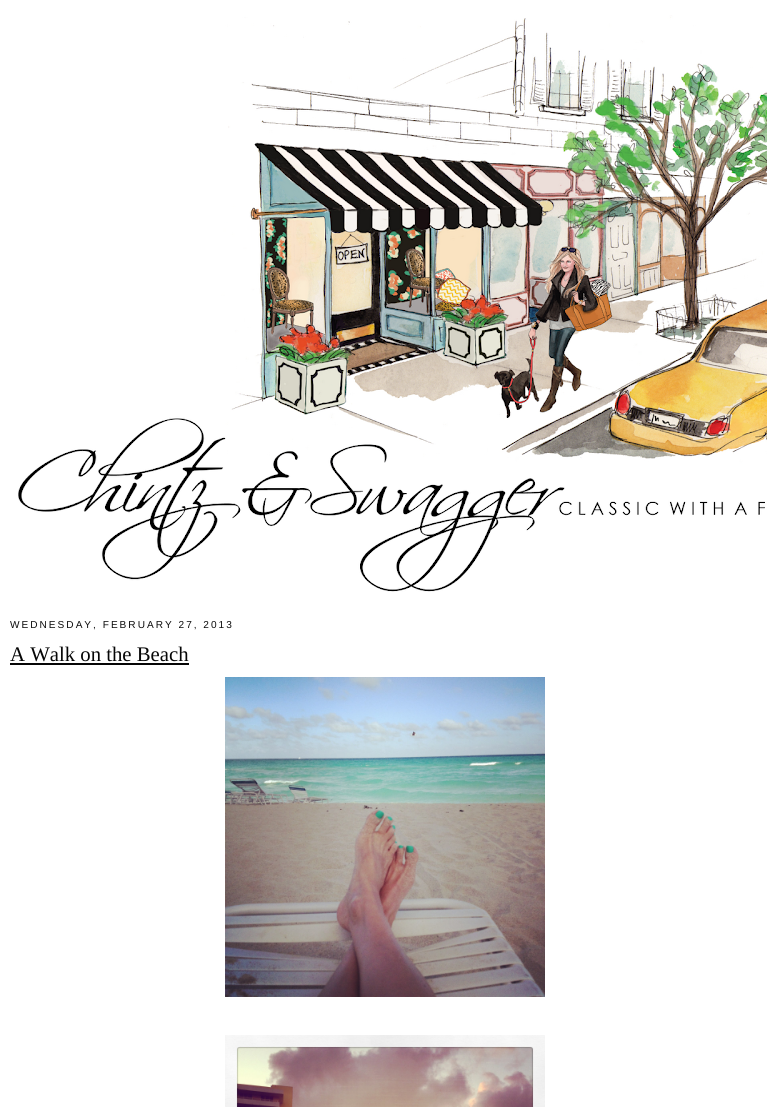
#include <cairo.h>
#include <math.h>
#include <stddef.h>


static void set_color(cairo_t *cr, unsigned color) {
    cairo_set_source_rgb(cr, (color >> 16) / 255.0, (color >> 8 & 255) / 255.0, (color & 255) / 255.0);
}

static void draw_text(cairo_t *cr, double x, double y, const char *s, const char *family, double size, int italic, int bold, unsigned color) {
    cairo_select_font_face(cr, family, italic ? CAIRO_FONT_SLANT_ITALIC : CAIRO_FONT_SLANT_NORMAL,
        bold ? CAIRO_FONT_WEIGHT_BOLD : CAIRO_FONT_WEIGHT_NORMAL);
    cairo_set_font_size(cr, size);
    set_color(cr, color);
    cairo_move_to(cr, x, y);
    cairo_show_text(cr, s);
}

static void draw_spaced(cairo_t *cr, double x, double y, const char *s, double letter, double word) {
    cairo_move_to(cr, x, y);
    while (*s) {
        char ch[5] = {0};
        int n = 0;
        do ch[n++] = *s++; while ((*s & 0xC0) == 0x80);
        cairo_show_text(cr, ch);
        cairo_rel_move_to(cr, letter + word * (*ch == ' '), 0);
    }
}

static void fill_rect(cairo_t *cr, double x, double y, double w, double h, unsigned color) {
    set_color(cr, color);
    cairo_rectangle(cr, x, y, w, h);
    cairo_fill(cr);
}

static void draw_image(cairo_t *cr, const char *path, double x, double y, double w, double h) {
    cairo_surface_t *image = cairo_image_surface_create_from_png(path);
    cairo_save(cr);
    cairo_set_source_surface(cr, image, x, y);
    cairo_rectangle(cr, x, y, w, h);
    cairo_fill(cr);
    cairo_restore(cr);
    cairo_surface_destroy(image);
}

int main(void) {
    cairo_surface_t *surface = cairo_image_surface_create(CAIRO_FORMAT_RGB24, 767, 1107);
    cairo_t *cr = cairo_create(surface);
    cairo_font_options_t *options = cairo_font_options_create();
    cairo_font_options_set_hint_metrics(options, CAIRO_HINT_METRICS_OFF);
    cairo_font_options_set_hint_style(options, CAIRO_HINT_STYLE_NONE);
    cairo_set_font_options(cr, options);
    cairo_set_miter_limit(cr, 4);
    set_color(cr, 0xFFFFFF);
    cairo_paint(cr);
    draw_image(cr, "assets/img1.png", 18, 15, 749, 577);
    cairo_select_font_face(cr, "Liberation Sans", CAIRO_FONT_SLANT_NORMAL, CAIRO_FONT_WEIGHT_NORMAL);
    cairo_set_font_size(cr, 10.1);
    set_color(cr, 0x0C0C0C);
    draw_spaced(cr, 10, 628, "WEDNESDAY, FEBRUARY 27, 2013", 2, 0);
    draw_text(cr, 10, 661, "A Walk on the Beach", "Liberation Serif", 20.75, 0, 0, 0x060606);
    fill_rect(cr, 10, 663, 179, 2, 0x060606);
    draw_image(cr, "assets/img2.png", 225, 677, 320, 320);
    draw_image(cr, "assets/img3.png", 225, 1035, 320, 72);
    cairo_surface_write_to_png(surface, "output.png");
    cairo_font_options_destroy(options);
    cairo_destroy(cr);
    cairo_surface_destroy(surface);
    return 0;
}
